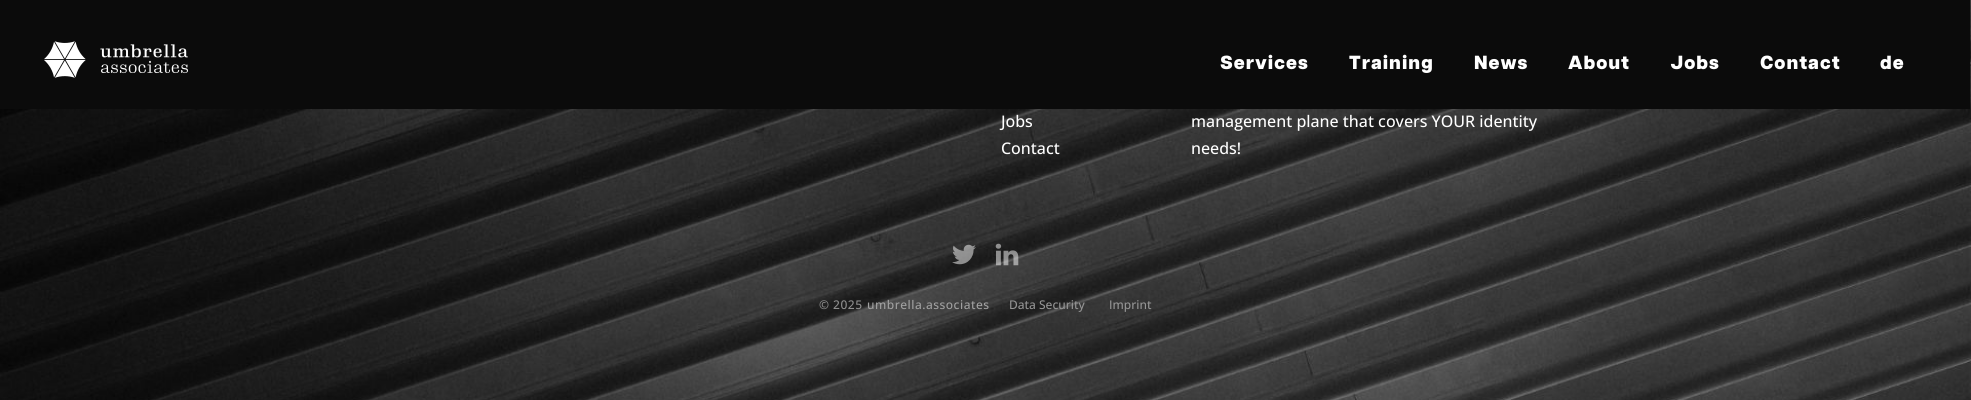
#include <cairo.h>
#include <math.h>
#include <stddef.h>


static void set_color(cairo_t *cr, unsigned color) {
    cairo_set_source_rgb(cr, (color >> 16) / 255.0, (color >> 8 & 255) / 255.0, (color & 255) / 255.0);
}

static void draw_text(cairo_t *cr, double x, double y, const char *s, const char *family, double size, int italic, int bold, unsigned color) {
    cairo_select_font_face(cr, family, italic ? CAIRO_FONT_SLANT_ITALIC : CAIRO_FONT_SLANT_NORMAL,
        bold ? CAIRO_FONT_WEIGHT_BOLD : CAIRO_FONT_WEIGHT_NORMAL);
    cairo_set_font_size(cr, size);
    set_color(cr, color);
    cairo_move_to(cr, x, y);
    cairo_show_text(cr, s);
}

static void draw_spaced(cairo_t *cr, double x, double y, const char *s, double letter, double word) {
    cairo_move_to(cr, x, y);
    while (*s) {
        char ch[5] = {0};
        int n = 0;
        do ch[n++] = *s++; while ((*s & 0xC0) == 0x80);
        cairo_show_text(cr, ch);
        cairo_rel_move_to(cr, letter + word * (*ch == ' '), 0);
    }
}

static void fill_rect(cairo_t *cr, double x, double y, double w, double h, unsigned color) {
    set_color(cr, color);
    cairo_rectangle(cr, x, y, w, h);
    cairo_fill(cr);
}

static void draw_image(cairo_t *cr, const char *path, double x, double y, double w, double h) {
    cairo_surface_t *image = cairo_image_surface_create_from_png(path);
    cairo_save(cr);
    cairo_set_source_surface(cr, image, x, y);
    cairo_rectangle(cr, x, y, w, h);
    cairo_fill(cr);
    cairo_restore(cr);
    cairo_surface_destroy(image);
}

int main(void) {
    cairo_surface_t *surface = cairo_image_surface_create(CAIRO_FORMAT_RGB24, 1971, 400);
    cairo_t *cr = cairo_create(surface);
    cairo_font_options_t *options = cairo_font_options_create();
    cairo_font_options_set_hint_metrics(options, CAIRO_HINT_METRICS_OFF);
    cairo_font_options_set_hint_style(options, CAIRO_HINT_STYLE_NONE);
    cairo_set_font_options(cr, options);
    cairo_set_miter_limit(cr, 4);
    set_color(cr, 0xFFFFFF);
    cairo_paint(cr);
    draw_image(cr, "assets/img2.png", 0, 0, 1971, 400);
    fill_rect(cr, 0, 0, 1970, 109, 0x0B0B0B);
    draw_image(cr, "assets/img1.png", 44, 41, 144, 37);
    cairo_select_font_face(cr, "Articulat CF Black", CAIRO_FONT_SLANT_NORMAL, CAIRO_FONT_WEIGHT_NORMAL);
    cairo_set_font_size(cr, 19);
    set_color(cr, 0xFFFFFF);
    draw_spaced(cr, 1220, 69, "Services", 1, 0);
    draw_spaced(cr, 1349, 69, "Training", 1, 0);
    draw_spaced(cr, 1474, 69, "News", 1, 0);
    draw_spaced(cr, 1568, 69, "About", 1, 0);
    draw_spaced(cr, 1670, 69, "Jobs", 1, 0);
    draw_spaced(cr, 1760, 69, "Contact", 1, 0);
    draw_spaced(cr, 1880, 69, "de", 1, 0);
    draw_text(cr, 1001, 127, "Jobs", "Open Sans Medium", 16, 0, 0, 0xFFFFFF);
    draw_text(cr, 1001, 154, "Contact", "Open Sans Medium", 16, 0, 0, 0xFFFFFF);
    draw_text(cr, 1191, 127, "management plane that covers YOUR identity", "Open Sans Medium", 16, 0, 0, 0xFFFFFF);
    draw_text(cr, 1191, 154, "needs!", "Open Sans Medium", 16, 0, 0, 0xFFFFFF);
    draw_image(cr, "assets/img3.png", 952, 244, 24, 21);
    draw_image(cr, "assets/img4.png", 995, 243, 24, 23);
    cairo_set_font_size(cr, 12);
    set_color(cr, 0x8F8F8F);
    draw_spaced(cr, 819, 309, "© 2025", 0.5, 0);
    set_color(cr, 0xA1A1A1);
    draw_spaced(cr, 867, 309, "umbrella.associates", 0.5, 0);
    draw_text(cr, 1009, 309, "Data Security", "Open Sans Medium", 12, 0, 0, 0x959595);
    draw_text(cr, 1109, 309, "Imprint", "Open Sans Medium", 12, 0, 0, 0x959595);
    cairo_surface_write_to_png(surface, "output.png");
    cairo_font_options_destroy(options);
    cairo_destroy(cr);
    cairo_surface_destroy(surface);
    return 0;
}
